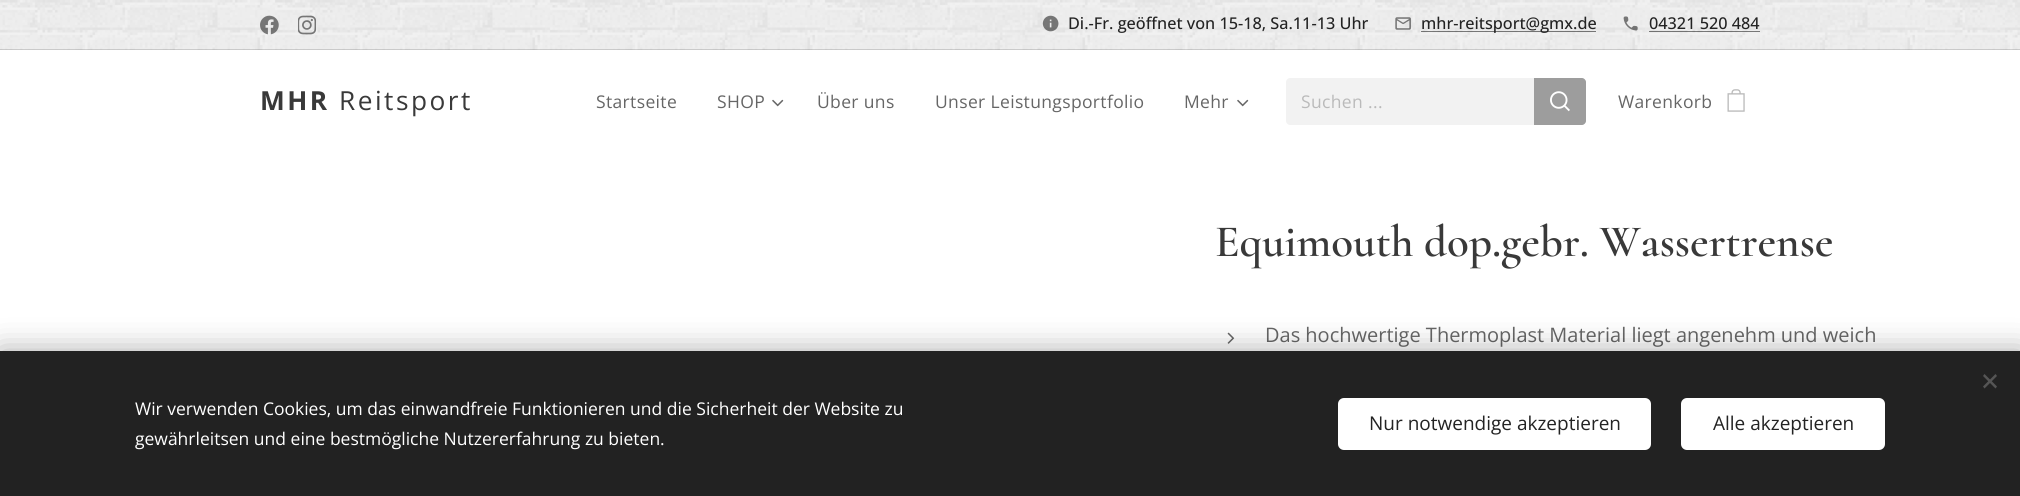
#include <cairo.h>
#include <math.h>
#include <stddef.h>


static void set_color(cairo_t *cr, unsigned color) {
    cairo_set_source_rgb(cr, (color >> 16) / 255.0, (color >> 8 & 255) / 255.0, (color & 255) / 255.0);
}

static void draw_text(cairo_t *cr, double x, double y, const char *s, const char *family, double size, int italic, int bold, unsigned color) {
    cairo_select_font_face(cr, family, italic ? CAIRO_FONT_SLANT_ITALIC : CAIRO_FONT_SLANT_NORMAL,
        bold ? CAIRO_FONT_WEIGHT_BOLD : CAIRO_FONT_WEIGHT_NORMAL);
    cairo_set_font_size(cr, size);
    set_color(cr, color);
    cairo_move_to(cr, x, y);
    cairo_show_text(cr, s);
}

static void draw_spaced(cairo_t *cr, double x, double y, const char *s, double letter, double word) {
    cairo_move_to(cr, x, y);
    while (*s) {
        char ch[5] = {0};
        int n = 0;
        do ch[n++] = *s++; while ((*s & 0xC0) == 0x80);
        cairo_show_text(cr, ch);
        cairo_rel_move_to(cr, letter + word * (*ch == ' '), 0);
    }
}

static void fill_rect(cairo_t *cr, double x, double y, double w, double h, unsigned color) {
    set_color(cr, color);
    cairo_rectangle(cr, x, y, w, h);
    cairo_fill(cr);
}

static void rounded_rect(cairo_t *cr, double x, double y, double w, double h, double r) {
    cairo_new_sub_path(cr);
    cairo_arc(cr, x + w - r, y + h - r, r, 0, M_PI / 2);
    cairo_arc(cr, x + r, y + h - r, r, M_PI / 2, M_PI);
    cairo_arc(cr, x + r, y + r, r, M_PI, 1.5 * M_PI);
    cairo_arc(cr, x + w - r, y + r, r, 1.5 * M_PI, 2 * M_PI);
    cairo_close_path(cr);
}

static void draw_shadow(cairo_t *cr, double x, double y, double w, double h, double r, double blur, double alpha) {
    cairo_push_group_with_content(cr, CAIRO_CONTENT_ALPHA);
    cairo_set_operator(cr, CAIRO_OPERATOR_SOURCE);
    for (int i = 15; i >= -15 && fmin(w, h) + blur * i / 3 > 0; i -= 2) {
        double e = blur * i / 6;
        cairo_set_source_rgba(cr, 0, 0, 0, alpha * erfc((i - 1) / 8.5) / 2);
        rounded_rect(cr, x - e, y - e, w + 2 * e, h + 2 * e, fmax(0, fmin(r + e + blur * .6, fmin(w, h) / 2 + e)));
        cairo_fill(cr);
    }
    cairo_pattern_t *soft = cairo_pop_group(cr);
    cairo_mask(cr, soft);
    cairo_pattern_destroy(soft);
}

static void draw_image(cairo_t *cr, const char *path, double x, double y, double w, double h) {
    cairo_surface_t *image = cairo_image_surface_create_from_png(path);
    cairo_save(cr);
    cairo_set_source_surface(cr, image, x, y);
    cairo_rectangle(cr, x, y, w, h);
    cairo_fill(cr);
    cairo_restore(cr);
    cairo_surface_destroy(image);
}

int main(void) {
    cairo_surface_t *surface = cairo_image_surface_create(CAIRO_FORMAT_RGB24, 2020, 496);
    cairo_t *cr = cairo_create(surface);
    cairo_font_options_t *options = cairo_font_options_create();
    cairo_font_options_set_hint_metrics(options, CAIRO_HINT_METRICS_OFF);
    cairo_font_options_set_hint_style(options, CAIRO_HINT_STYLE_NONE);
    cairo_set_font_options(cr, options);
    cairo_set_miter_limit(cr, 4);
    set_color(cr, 0xFFFFFF);
    cairo_paint(cr);
    draw_image(cr, "assets/img1.png", 0, 0, 2020, 50);
    draw_image(cr, "assets/img2.png", 260, 15, 19, 20);
    draw_image(cr, "assets/img3.png", 298, 15, 18, 20);
    draw_image(cr, "assets/img4.png", 1042, 15, 17, 17);
    draw_text(cr, 1068, 29, "Di.-Fr. geöffnet von 15-18, Sa.11-13 Uhr", "Open Sans Medium", 16.25, 0, 0, 0x232323);
    draw_image(cr, "assets/img5.png", 1395, 17, 16, 13);
    cairo_set_source_rgba(cr, 0, 0, 0, 0.5);
    cairo_rectangle(cr, 1421, 31, 175, 1);
    cairo_fill(cr);
    draw_text(cr, 1421, 29, "mhr-reitsport@gmx.de", "Open Sans Medium", 16.25, 0, 0, 0x232323);
    draw_image(cr, "assets/img6.png", 1623, 16, 15, 15);
    draw_text(cr, 1649, 29, "04321 520 484", "Open Sans Medium", 16.25, 0, 0, 0x232323);
    cairo_set_source_rgba(cr, 0, 0, 0, 0.5);
    cairo_rectangle(cr, 1649, 31, 111, 1);
    cairo_fill(cr);
    cairo_set_source_rgba(cr, 0, 0, 0, 0.15);
    cairo_rectangle(cr, 0, 49, 2020, 1);
    cairo_fill(cr);
    cairo_select_font_face(cr, "Open Sans", CAIRO_FONT_SLANT_NORMAL, CAIRO_FONT_WEIGHT_BOLD);
    cairo_set_font_size(cr, 26.25);
    set_color(cr, 0x393939);
    draw_spaced(cr, 260, 110, "MHR", 2.5, 0);
    cairo_select_font_face(cr, "Open Sans", CAIRO_FONT_SLANT_NORMAL, CAIRO_FONT_WEIGHT_NORMAL);
    draw_spaced(cr, 339, 110, "Reitsport", 2.5, 0);
    cairo_set_font_size(cr, 17.5);
    set_color(cr, 0x666666);
    draw_spaced(cr, 596, 108, "Startseite", 0.35, 0);
    draw_spaced(cr, 717, 108, "SHOP", 0.35, 0);
    draw_image(cr, "assets/img7.png", 772, 99, 12, 8);
    draw_spaced(cr, 817, 108, "Über uns", 0.35, 0);
    draw_spaced(cr, 935, 108, "Unser Leistungsportfolio", 0.35, 0);
    draw_spaced(cr, 1184, 108, "Mehr", 0.35, 0);
    draw_image(cr, "assets/img7.png", 1237, 99, 12, 8);
    set_color(cr, 0xF2F2F2);
    cairo_new_path(cr);
    cairo_move_to(cr, 1290, 78);
    cairo_line_to(cr, 1534, 78);
    cairo_line_to(cr, 1534, 125);
    cairo_line_to(cr, 1290, 125);
    cairo_curve_to(cr, 1288, 125, 1286, 123, 1286, 121);
    cairo_line_to(cr, 1286, 82);
    cairo_curve_to(cr, 1286, 80, 1288, 78, 1290, 78);
    cairo_close_path(cr);
    cairo_fill(cr);
    set_color(cr, 0xBABABA);
    draw_spaced(cr, 1301, 108, "Suchen ...", 0.35, 0);
    set_color(cr, 0x9D9D9D);
    cairo_new_path(cr);
    cairo_move_to(cr, 1534, 78);
    cairo_line_to(cr, 1582, 78);
    cairo_curve_to(cr, 1584, 78, 1586, 80, 1586, 82);
    cairo_line_to(cr, 1586, 121);
    cairo_curve_to(cr, 1586, 123, 1584, 125, 1582, 125);
    cairo_line_to(cr, 1534, 125);
    cairo_close_path(cr);
    cairo_fill(cr);
    draw_image(cr, "assets/img8.png", 1550, 91, 20, 21);
    set_color(cr, 0x666666);
    draw_spaced(cr, 1618, 108, "Warenkorb", 0.35, 0);
    draw_image(cr, "assets/img9.png", 1727, 89, 18, 23);
    draw_text(cr, 1215, 256, "Equimouth dop.gebr. Wassertrense", "Cormorant SemiBold", 45, 0, 0, 0x393939);
    draw_image(cr, "assets/img10.png", 1227, 332, 8, 12);
    draw_text(cr, 1265, 342, "Das hochwertige Thermoplast Material liegt angenehm und weich", "Open Sans", 20, 0, 0, 0x666666);
    set_color(cr, 0x000000);
    draw_shadow(cr, 0, 351, 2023, 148, 0, 15.5, 0.33);
    fill_rect(cr, 0, 351, 2020, 145, 0x222222);
    set_color(cr, 0x555555);
    cairo_new_path(cr);
    cairo_move_to(cr, 1983, 386.5);
    cairo_line_to(cr, 1995.5, 374);
    cairo_line_to(cr, 1997, 376);
    cairo_line_to(cr, 1984.5, 388.5);
    cairo_close_path(cr);
    cairo_fill(cr);
    cairo_new_path(cr);
    cairo_move_to(cr, 1984.5, 374);
    cairo_line_to(cr, 1997, 386.5);
    cairo_line_to(cr, 1995.5, 388.5);
    cairo_line_to(cr, 1983, 376);
    cairo_close_path(cr);
    cairo_fill(cr);
    draw_text(cr, 135, 415, "Wir verwenden Cookies, um das einwandfreie Funktionieren und die Sicherheit der Website zu", "Open Sans", 17.5, 0, 0, 0xFFFFFF);
    draw_text(cr, 135, 445, "gewährleitsen und eine bestmögliche Nutzererfahrung zu bieten.", "Open Sans", 17.5, 0, 0, 0xFFFFFF);
    rounded_rect(cr, 1338, 398, 313, 52, 6);
    cairo_fill(cr);
    draw_text(cr, 1369, 430, "Nur notwendige akzeptieren", "Open Sans", 19, 0, 0, 0x232323);
    set_color(cr, 0xFFFFFF);
    rounded_rect(cr, 1681, 398, 204, 52, 6);
    cairo_fill(cr);
    draw_text(cr, 1713, 430, "Alle akzeptieren", "Open Sans", 19, 0, 0, 0x232323);
    cairo_surface_write_to_png(surface, "output.png");
    cairo_font_options_destroy(options);
    cairo_destroy(cr);
    cairo_surface_destroy(surface);
    return 0;
}
